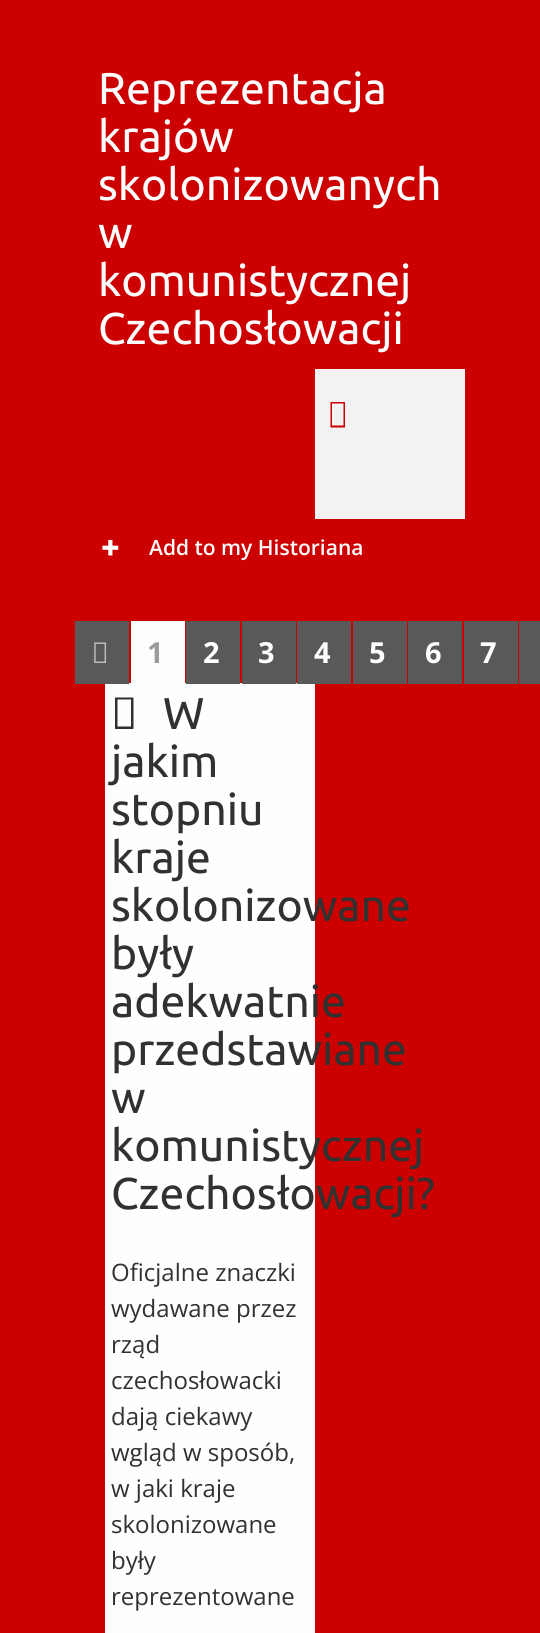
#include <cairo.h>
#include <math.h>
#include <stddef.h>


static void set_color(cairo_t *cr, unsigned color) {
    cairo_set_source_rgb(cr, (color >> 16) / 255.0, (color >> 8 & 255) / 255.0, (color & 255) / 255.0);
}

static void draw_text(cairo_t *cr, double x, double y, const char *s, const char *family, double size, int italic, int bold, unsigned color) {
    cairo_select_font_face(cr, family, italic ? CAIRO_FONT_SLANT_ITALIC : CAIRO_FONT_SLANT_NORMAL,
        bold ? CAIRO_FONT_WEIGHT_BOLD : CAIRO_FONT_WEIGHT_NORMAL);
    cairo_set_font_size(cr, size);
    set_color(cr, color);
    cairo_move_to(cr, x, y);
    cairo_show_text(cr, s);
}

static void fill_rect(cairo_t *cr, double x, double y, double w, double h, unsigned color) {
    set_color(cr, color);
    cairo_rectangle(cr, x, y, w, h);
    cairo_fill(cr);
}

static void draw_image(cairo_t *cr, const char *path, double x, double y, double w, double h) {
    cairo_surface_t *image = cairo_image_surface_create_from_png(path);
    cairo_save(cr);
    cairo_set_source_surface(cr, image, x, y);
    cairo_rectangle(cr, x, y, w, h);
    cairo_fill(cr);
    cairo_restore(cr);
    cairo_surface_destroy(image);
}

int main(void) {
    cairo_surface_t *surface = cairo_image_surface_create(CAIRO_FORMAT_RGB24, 540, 1633);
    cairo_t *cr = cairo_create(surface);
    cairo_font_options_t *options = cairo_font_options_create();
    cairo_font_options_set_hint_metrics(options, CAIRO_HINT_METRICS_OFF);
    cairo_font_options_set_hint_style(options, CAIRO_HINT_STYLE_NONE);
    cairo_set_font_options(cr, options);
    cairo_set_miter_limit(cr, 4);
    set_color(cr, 0xCC0000);
    cairo_paint(cr);
    draw_text(cr, 98, 104, "Reprezentacja", "Ubuntu", 44.5, 0, 0, 0xFEFEFE);
    draw_text(cr, 98, 152, "krajów", "Ubuntu", 44.5, 0, 0, 0xFEFEFE);
    draw_text(cr, 98, 200, "skolonizowanych", "Ubuntu", 44.5, 0, 0, 0xFEFEFE);
    draw_text(cr, 98, 248, "w", "Ubuntu", 44.5, 0, 0, 0xFEFEFE);
    draw_text(cr, 98, 296, "komunistycznej", "Ubuntu", 44.5, 0, 0, 0xFEFEFE);
    draw_text(cr, 98, 344, "Czechosłowacji", "Ubuntu", 44.5, 0, 0, 0xFEFEFE);
    fill_rect(cr, 315, 369, 150, 150, 0xF2F2F2);
    set_color(cr, 0xCC0000);
    cairo_new_path(cr);
    cairo_move_to(cr, 330.5, 427.5);
    cairo_line_to(cr, 330.5, 402);
    cairo_line_to(cr, 345, 402);
    cairo_line_to(cr, 345, 427.5);
    cairo_close_path(cr);
    cairo_move_to(cr, 332, 425.5);
    cairo_line_to(cr, 343.5, 425.5);
    cairo_line_to(cr, 343.5, 403.5);
    cairo_line_to(cr, 332, 403.5);
    cairo_close_path(cr);
    cairo_fill(cr);
    draw_text(cr, 101, 559, "+", "Noto Sans Black", 32, 0, 0, 0xFEFEFE);
    draw_text(cr, 149, 555, "Add to my Historiana", "Open Sans SemiBold", 21, 0, 0, 0xFEFEFE);
    fill_rect(cr, 105, 683, 210, 950, 0xFEFEFE);
    fill_rect(cr, 75, 621, 54, 63, 0x595959);
    draw_image(cr, "assets/img1.png", 94, 642, 13, 21);
    fill_rect(cr, 131, 621, 54, 62, 0xFEFEFE);
    draw_text(cr, 147, 663, "1", "Open Sans", 29, 0, 1, 0x9C9C9C);
    fill_rect(cr, 186, 621, 54, 63, 0x595959);
    draw_text(cr, 203, 663, "2", "Open Sans", 29, 0, 1, 0xFEFEFE);
    fill_rect(cr, 242, 621, 54, 63, 0x595959);
    draw_text(cr, 258, 663, "3", "Open Sans", 29, 0, 1, 0xFEFEFE);
    fill_rect(cr, 297, 621, 54, 63, 0x595959);
    draw_text(cr, 314, 663, "4", "Open Sans", 29, 0, 1, 0xFEFEFE);
    fill_rect(cr, 353, 621, 54, 63, 0x595959);
    draw_text(cr, 369, 663, "5", "Open Sans", 29, 0, 1, 0xFEFEFE);
    fill_rect(cr, 408, 621, 54, 63, 0x595959);
    draw_text(cr, 425, 663, "6", "Open Sans", 29, 0, 1, 0xFEFEFE);
    fill_rect(cr, 464, 621, 54, 63, 0x595959);
    draw_text(cr, 480, 663, "7", "Open Sans", 29, 0, 1, 0xFEFEFE);
    fill_rect(cr, 519, 621, 21, 63, 0x595959);
    set_color(cr, 0x313131);
    cairo_new_path(cr);
    cairo_move_to(cr, 115, 729);
    cairo_line_to(cr, 115, 697.5);
    cairo_line_to(cr, 133.5, 697.5);
    cairo_line_to(cr, 133.5, 729);
    cairo_close_path(cr);
    cairo_move_to(cr, 117.5, 726.5);
    cairo_line_to(cr, 131, 726.5);
    cairo_line_to(cr, 131, 699.5);
    cairo_line_to(cr, 117.5, 699.5);
    cairo_close_path(cr);
    cairo_fill(cr);
    draw_text(cr, 163, 729, "W", "Ubuntu", 44.5, 0, 0, 0x313131);
    draw_text(cr, 111, 777, "jakim", "Ubuntu", 44.5, 0, 0, 0x313131);
    draw_text(cr, 111, 825, "stopniu", "Ubuntu", 44.5, 0, 0, 0x313131);
    draw_text(cr, 111, 873, "kraje", "Ubuntu", 44.5, 0, 0, 0x313131);
    draw_text(cr, 111, 921, "skolonizowane", "Ubuntu", 44.5, 0, 0, 0x313131);
    draw_text(cr, 111, 969, "były", "Ubuntu", 44.5, 0, 0, 0x313131);
    draw_text(cr, 111, 1017, "adekwatnie", "Ubuntu", 44.5, 0, 0, 0x313131);
    draw_text(cr, 111, 1065, "przedstawiane", "Ubuntu", 44.5, 0, 0, 0x313131);
    draw_text(cr, 111, 1113, "w", "Ubuntu", 44.5, 0, 0, 0x313131);
    draw_text(cr, 111, 1161, "komunistycznej", "Ubuntu", 44.5, 0, 0, 0x313131);
    draw_text(cr, 111, 1209, "Czechosłowacji?", "Ubuntu", 44.5, 0, 0, 0x313131);
    draw_text(cr, 111, 1281, "Oficjalne znaczki", "Open Sans", 24, 0, 0, 0x313131);
    draw_text(cr, 111, 1317, "wydawane przez", "Open Sans", 24, 0, 0, 0x313131);
    draw_text(cr, 111, 1353, "rząd", "Open Sans", 24, 0, 0, 0x313131);
    draw_text(cr, 111, 1389, "czechosłowacki", "Open Sans", 24, 0, 0, 0x313131);
    draw_text(cr, 111, 1425, "dają ciekawy", "Open Sans", 24, 0, 0, 0x313131);
    draw_text(cr, 111, 1461, "wgląd w sposób,", "Open Sans", 24, 0, 0, 0x313131);
    draw_text(cr, 111, 1497, "w jaki kraje", "Open Sans", 24, 0, 0, 0x313131);
    draw_text(cr, 111, 1533, "skolonizowane", "Open Sans", 24, 0, 0, 0x313131);
    draw_text(cr, 111, 1569, "były", "Open Sans", 24, 0, 0, 0x313131);
    draw_text(cr, 111, 1605, "reprezentowane", "Open Sans", 24, 0, 0, 0x313131);
    cairo_surface_write_to_png(surface, "output.png");
    cairo_font_options_destroy(options);
    cairo_destroy(cr);
    cairo_surface_destroy(surface);
    return 0;
}
